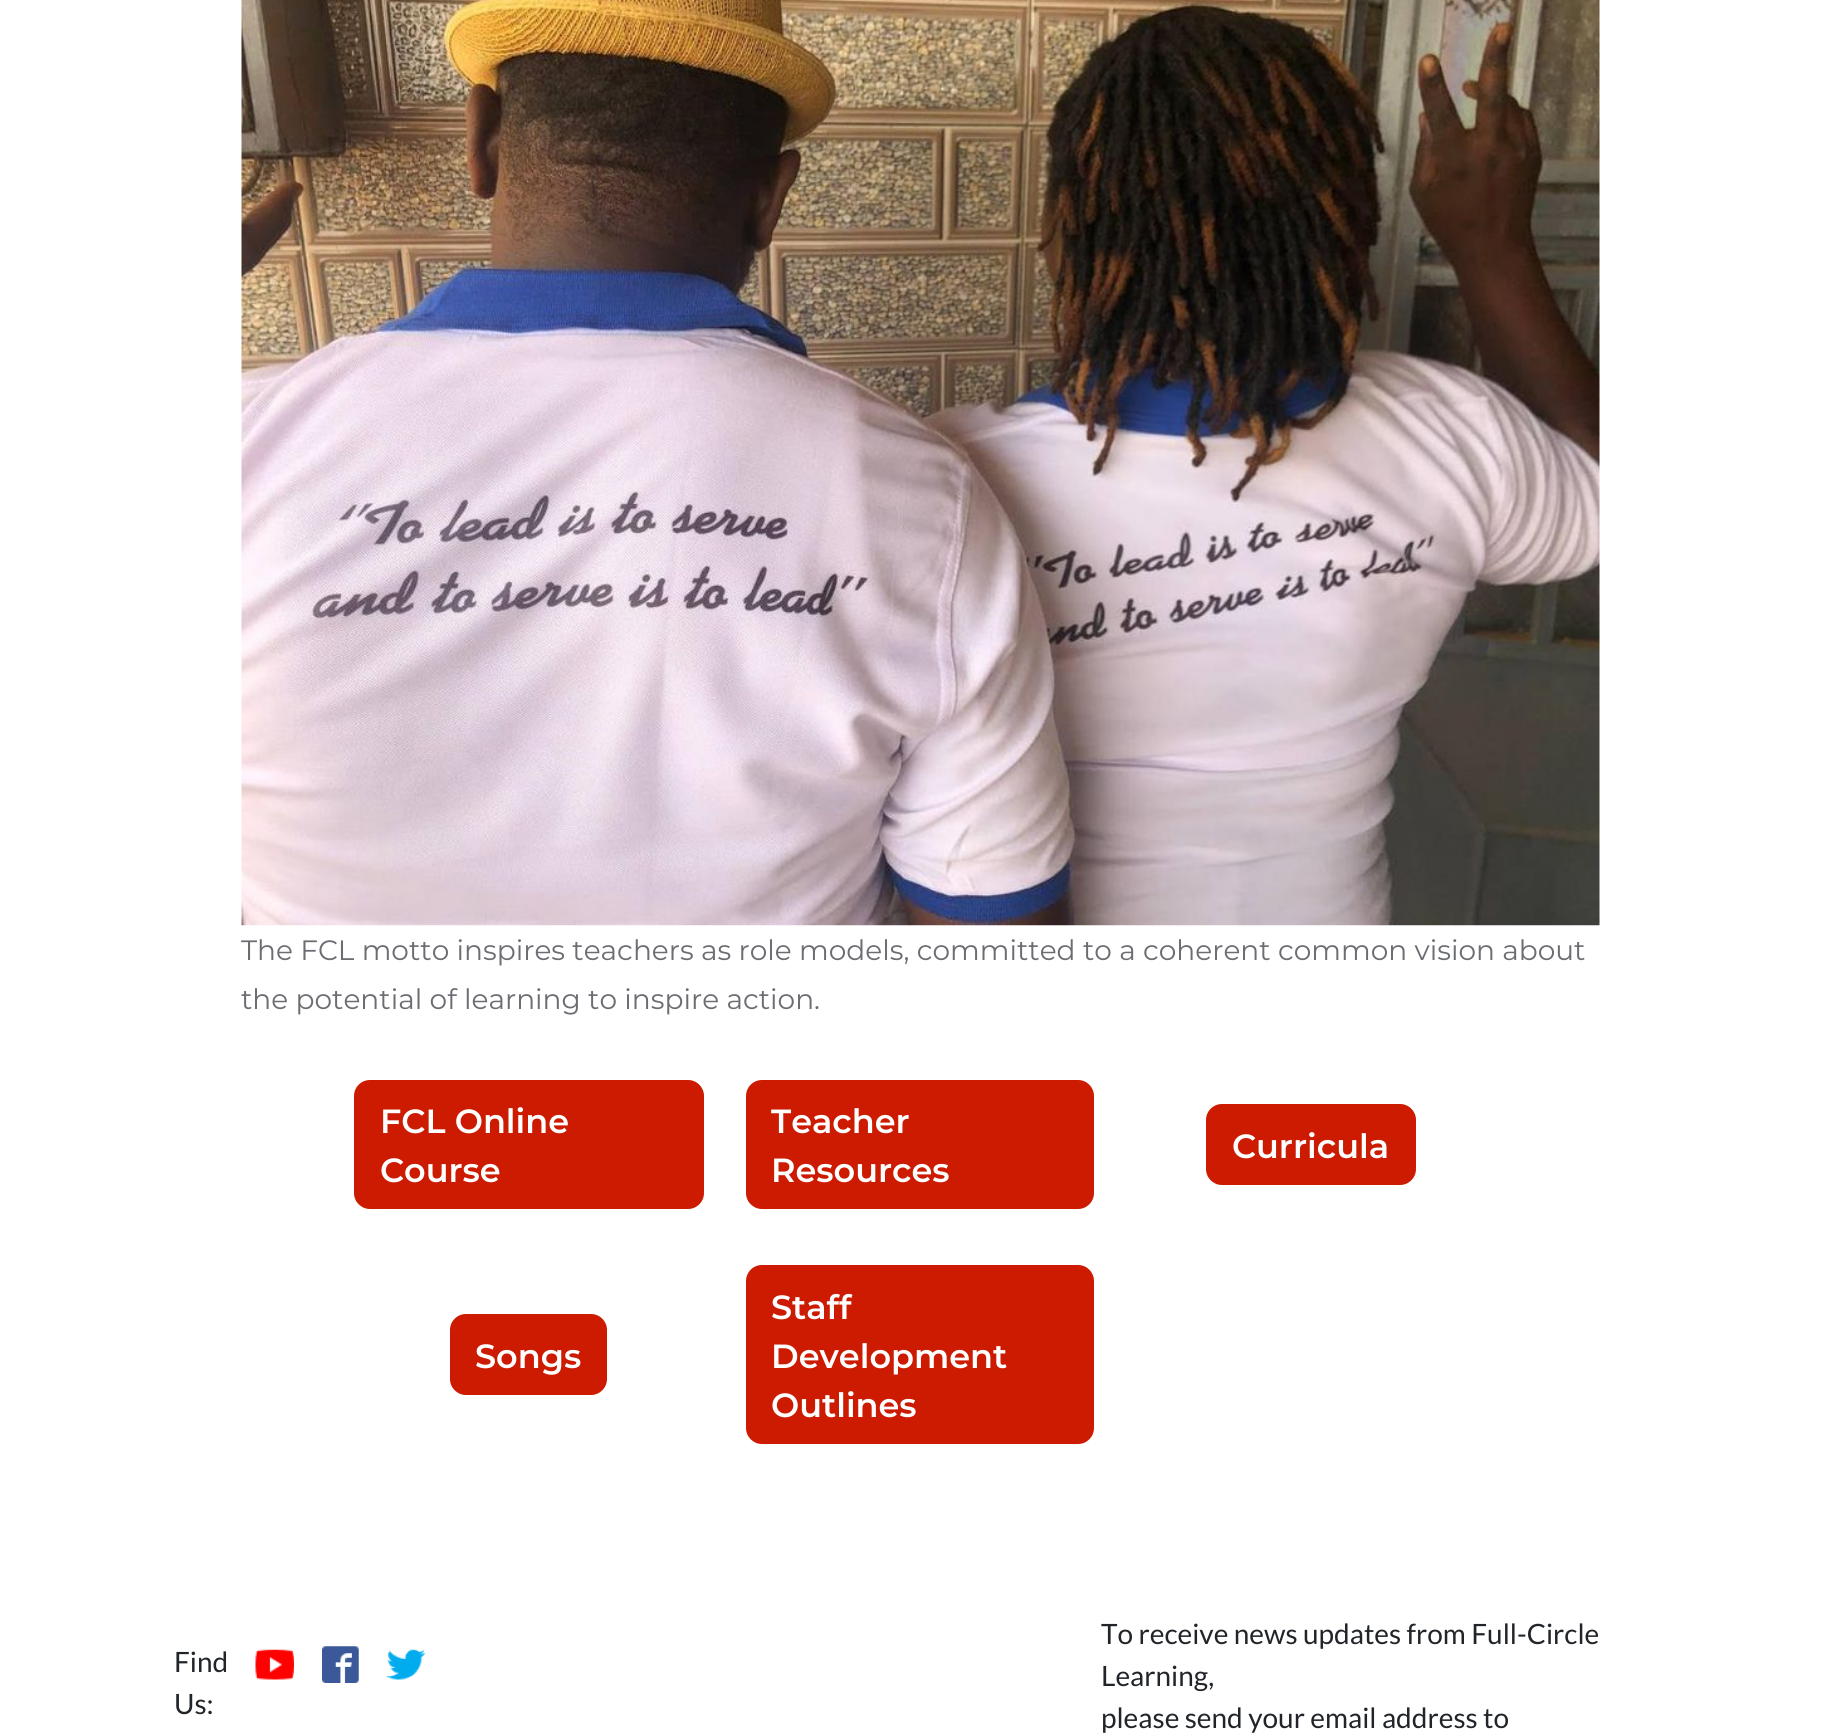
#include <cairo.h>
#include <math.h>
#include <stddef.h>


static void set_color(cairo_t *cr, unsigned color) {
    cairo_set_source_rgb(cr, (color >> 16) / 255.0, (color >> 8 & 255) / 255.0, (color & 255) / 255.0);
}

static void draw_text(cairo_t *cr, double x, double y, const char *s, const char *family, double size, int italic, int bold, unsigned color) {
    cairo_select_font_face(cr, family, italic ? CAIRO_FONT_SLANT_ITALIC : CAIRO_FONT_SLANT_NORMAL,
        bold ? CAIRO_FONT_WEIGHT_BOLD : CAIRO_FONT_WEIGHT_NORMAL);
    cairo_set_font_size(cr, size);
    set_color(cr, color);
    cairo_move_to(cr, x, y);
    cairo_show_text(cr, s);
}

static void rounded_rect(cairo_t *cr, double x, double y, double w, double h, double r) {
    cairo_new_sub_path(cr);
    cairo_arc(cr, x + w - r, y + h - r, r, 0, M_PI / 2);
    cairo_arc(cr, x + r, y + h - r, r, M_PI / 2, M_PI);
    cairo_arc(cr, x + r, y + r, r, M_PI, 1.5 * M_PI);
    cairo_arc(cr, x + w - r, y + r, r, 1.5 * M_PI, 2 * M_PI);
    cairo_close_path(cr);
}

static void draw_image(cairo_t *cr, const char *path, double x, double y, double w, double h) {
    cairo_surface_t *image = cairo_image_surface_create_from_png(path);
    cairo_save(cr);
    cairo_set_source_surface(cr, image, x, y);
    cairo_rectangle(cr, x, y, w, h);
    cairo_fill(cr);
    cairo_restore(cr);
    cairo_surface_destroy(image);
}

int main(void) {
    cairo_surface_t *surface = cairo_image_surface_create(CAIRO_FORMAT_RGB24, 1838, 1735);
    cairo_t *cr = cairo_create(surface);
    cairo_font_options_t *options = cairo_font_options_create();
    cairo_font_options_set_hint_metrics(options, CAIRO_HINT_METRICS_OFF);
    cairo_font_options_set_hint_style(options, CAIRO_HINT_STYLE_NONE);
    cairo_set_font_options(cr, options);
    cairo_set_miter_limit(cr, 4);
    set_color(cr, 0xFFFFFF);
    cairo_paint(cr);
    draw_image(cr, "assets/img1.png", 241, 0, 1359, 926);
    draw_text(cr, 241, 960, "The FCL motto inspires teachers as role models, committed to a coherent common vision about", "Montserrat", 28, 0, 0, 0x6B6D72);
    draw_text(cr, 241, 1009, "the potential of learning to inspire action.", "Montserrat", 28, 0, 0, 0x6B6D72);
    set_color(cr, 0xCC1B00);
    rounded_rect(cr, 354, 1080, 350, 129, 16);
    cairo_fill(cr);
    draw_text(cr, 380, 1133, "FCL Online", "Montserrat SemiBold", 33.5, 0, 0, 0xFFFFFF);
    draw_text(cr, 380, 1182, "Course", "Montserrat SemiBold", 33.5, 0, 0, 0xFFFFFF);
    set_color(cr, 0xCC1B00);
    rounded_rect(cr, 746, 1080, 348, 129, 16);
    cairo_fill(cr);
    draw_text(cr, 771, 1133, "Teacher", "Montserrat SemiBold", 33.5, 0, 0, 0xFFFFFF);
    draw_text(cr, 771, 1182, "Resources", "Montserrat SemiBold", 33.5, 0, 0, 0xFFFFFF);
    set_color(cr, 0xCC1B00);
    rounded_rect(cr, 1206, 1104, 210, 81, 16);
    cairo_fill(cr);
    draw_text(cr, 1232, 1158, "Curricula", "Montserrat SemiBold", 33.5, 0, 0, 0xFFFFFF);
    set_color(cr, 0xCC1B00);
    rounded_rect(cr, 450, 1314, 157, 81, 16);
    cairo_fill(cr);
    draw_text(cr, 475, 1368, "Songs", "Montserrat SemiBold", 33.5, 0, 0, 0xFFFFFF);
    set_color(cr, 0xCC1B00);
    rounded_rect(cr, 746, 1265, 348, 179, 16);
    cairo_fill(cr);
    draw_text(cr, 771, 1319, "Staff", "Montserrat SemiBold", 33.5, 0, 0, 0xFFFFFF);
    draw_text(cr, 771, 1368, "Development", "Montserrat SemiBold", 33.5, 0, 0, 0xFFFFFF);
    draw_text(cr, 771, 1417, "Outlines", "Montserrat SemiBold", 33.5, 0, 0, 0xFFFFFF);
    draw_text(cr, 174, 1672, "Find", "Lato", 28, 0, 0, 0x212529);
    draw_text(cr, 174, 1714, "Us:", "Lato", 28, 0, 0, 0x212529);
    draw_image(cr, "assets/img2.png", 255, 1649, 39, 31);
    draw_image(cr, "assets/img3.png", 322, 1646, 37, 37);
    draw_image(cr, "assets/img4.png", 386, 1649, 40, 31);
    draw_text(cr, 1101, 1644, "To receive news updates from Full-Circle", "Lato", 28, 0, 0, 0x212529);
    draw_text(cr, 1101, 1686, "Learning,", "Lato", 28, 0, 0, 0x212529);
    draw_text(cr, 1101, 1728, "please send your email address to", "Lato", 28, 0, 0, 0x212529);
    cairo_surface_write_to_png(surface, "output.png");
    cairo_font_options_destroy(options);
    cairo_destroy(cr);
    cairo_surface_destroy(surface);
    return 0;
}
